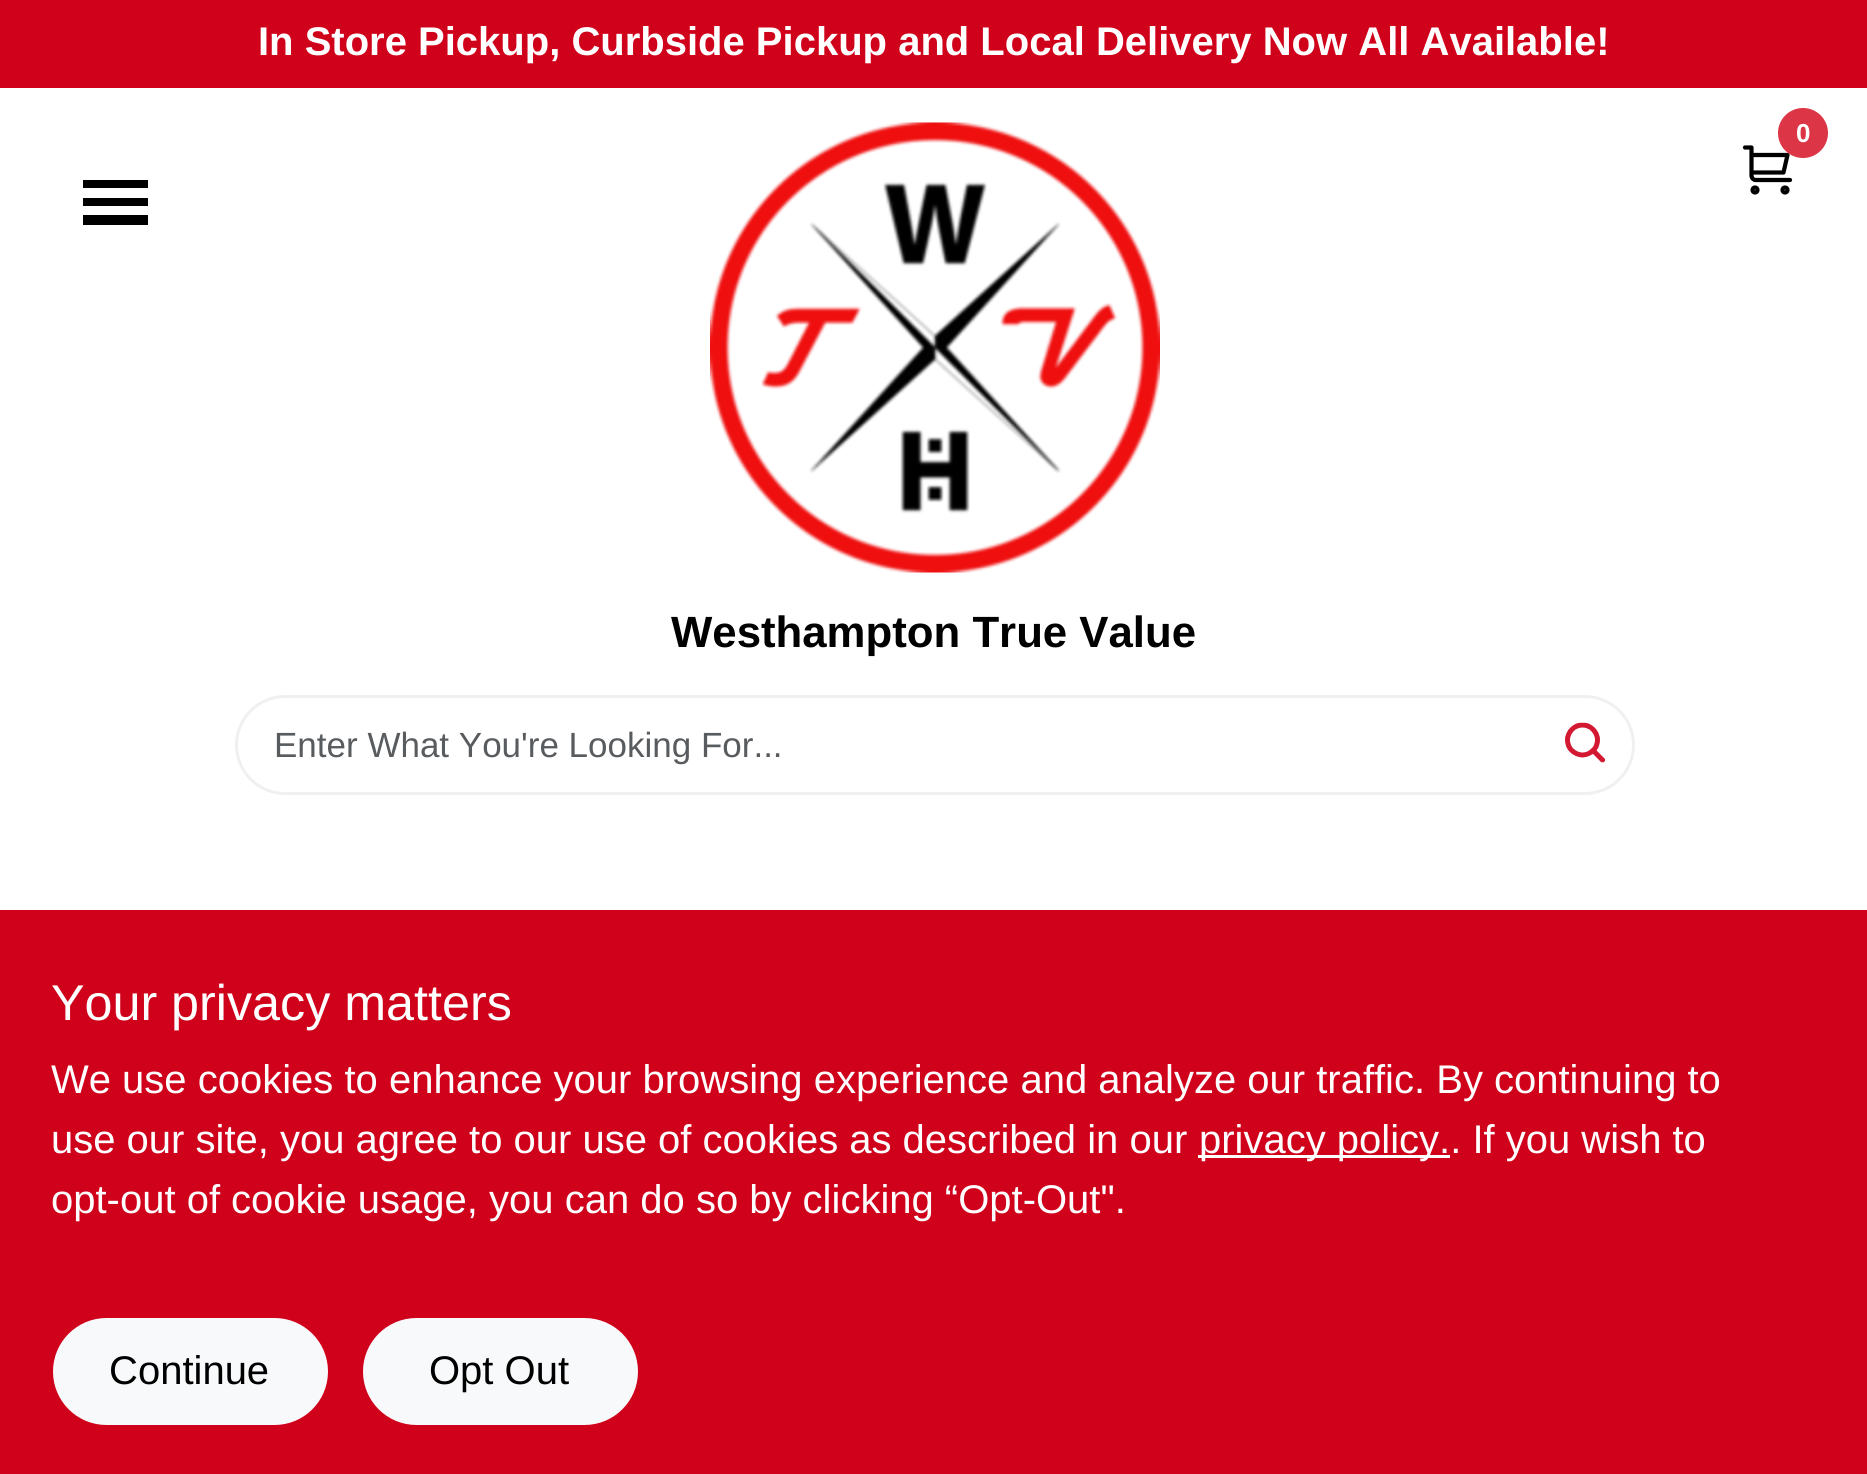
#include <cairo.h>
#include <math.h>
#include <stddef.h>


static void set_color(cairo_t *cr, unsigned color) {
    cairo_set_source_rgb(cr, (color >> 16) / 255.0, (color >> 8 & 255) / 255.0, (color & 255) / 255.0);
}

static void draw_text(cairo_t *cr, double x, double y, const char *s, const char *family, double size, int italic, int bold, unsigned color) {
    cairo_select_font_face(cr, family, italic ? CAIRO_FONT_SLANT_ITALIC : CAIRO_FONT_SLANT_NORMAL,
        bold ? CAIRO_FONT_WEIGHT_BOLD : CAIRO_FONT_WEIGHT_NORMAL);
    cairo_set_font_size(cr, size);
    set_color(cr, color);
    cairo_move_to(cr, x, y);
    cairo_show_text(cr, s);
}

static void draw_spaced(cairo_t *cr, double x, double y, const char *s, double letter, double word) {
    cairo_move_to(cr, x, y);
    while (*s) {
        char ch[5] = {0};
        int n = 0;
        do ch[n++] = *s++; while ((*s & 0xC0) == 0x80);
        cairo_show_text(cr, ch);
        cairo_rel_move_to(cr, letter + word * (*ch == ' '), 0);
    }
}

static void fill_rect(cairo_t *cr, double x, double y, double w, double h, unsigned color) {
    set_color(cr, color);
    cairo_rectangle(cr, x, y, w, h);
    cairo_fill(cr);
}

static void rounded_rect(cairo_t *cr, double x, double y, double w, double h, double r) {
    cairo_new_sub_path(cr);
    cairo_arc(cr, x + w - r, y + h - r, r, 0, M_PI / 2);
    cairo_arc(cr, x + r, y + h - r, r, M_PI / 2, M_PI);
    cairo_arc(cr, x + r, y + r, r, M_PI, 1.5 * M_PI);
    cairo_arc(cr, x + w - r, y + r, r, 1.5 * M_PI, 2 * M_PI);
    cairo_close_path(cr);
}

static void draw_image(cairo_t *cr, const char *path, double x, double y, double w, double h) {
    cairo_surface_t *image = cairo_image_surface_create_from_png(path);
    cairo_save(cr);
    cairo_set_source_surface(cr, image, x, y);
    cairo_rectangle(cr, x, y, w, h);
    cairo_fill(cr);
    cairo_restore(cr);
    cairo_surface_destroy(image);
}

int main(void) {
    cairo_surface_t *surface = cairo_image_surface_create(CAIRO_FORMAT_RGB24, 1867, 1474);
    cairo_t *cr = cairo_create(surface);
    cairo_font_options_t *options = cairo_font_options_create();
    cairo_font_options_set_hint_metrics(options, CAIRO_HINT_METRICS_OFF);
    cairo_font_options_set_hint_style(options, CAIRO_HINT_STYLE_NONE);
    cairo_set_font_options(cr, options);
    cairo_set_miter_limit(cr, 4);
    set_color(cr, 0xFFFFFF);
    cairo_paint(cr);
    fill_rect(cr, 0, 0, 1867, 88, 0xD0021B);
    draw_text(cr, 258, 55, "In Store Pickup, Curbside Pickup and Local Delivery Now All Available!", "Liberation Sans", 40, 0, 1, 0xFFFFFF);
    cairo_new_path(cr);
    cairo_move_to(cr, 1745, 147.5);
    cairo_line_to(cr, 1751.5, 147.5);
    cairo_line_to(cr, 1751.5, 175.5);
    cairo_curve_to(cr, 1751.5, 178, 1753.5, 180, 1755.5, 180);
    cairo_line_to(cr, 1790, 180);
    cairo_move_to(cr, 1752.5, 155);
    cairo_line_to(cr, 1787.5, 155);
    cairo_line_to(cr, 1783.5, 172.5);
    cairo_line_to(cr, 1752.5, 172.5);
    set_color(cr, 0x000000);
    cairo_set_line_width(cr, 4.2);
    cairo_set_line_cap(cr, CAIRO_LINE_CAP_ROUND);
    cairo_set_line_join(cr, CAIRO_LINE_JOIN_ROUND);
    cairo_stroke(cr);
    set_color(cr, 0xDC3545);
    cairo_arc(cr, 1803, 133, 25, 0, 2 * M_PI);
    cairo_fill(cr);
    cairo_set_font_size(cr, 26);
    set_color(cr, 0xFFFFFF);
    draw_spaced(cr, 1796, 142, "0", -2, 0);
    cairo_new_path(cr);
    cairo_arc(cr, 1755, 190, 2.5, 0, 2 * M_PI);
    set_color(cr, 0x000000);
    cairo_set_line_cap(cr, CAIRO_LINE_CAP_BUTT);
    cairo_set_line_join(cr, CAIRO_LINE_JOIN_MITER);
    cairo_stroke(cr);
    cairo_arc(cr, 1785, 190, 2.5, 0, 2 * M_PI);
    cairo_stroke(cr);
    fill_rect(cr, 83, 180, 65, 8, 0x000000);
    fill_rect(cr, 83, 198, 65, 8, 0x000000);
    fill_rect(cr, 83, 215, 65, 10, 0x000000);
    draw_image(cr, "assets/img1.png", 710, 122, 450, 451);
    draw_text(cr, 671, 647, "Westhampton True Value", "Liberation Sans", 43.75, 0, 1, 0x000000);
    rounded_rect(cr, 236.5, 696.5, 1397, 97, 48.5);
    set_color(cr, 0xF0F0F0);
    cairo_set_line_width(cr, 3);
    cairo_stroke(cr);
    draw_text(cr, 274, 757, "Enter What You're Looking For...", "Liberation Sans", 35, 0, 0, 0x595C5F);
    draw_image(cr, "assets/img2.png", 1565, 722, 40, 41);
    fill_rect(cr, 0, 910, 1867, 564, 0xD0021B);
    draw_text(cr, 51, 1020, "Your privacy matters", "Liberation Sans", 50.25, 0, 0, 0xFFFFFF);
    draw_text(cr, 51, 1093, "We use cookies to enhance your browsing experience and analyze our traffic. By continuing to", "Liberation Sans", 40, 0, 0, 0xFFFFFF);
    draw_text(cr, 51, 1153, "use our site, you agree to our use of cookies as described in our", "Liberation Sans", 40, 0, 0, 0xFFFFFF);
    fill_rect(cr, 1198, 1155, 252, 3, 0xFFFFFF);
    draw_text(cr, 1199, 1153, "privacy policy.. If you wish to", "Liberation Sans", 40, 0, 0, 0xFFFFFF);
    draw_text(cr, 51, 1213, "opt-out of cookie usage, you can do so by clicking “Opt-Out\".", "Liberation Sans", 40, 0, 0, 0xFFFFFF);
    set_color(cr, 0xF8F9FA);
    rounded_rect(cr, 54.5, 1319.5, 272, 104, 52);
    cairo_fill_preserve(cr);
    cairo_stroke(cr);
    draw_text(cr, 109, 1384, "Continue", "Liberation Sans", 40, 0, 0, 0x000000);
    set_color(cr, 0xF8F9FA);
    rounded_rect(cr, 364.5, 1319.5, 272, 104, 52);
    cairo_fill_preserve(cr);
    cairo_stroke(cr);
    draw_text(cr, 429, 1384, "Opt Out", "Liberation Sans", 40, 0, 0, 0x000000);
    cairo_surface_write_to_png(surface, "output.png");
    cairo_font_options_destroy(options);
    cairo_destroy(cr);
    cairo_surface_destroy(surface);
    return 0;
}
